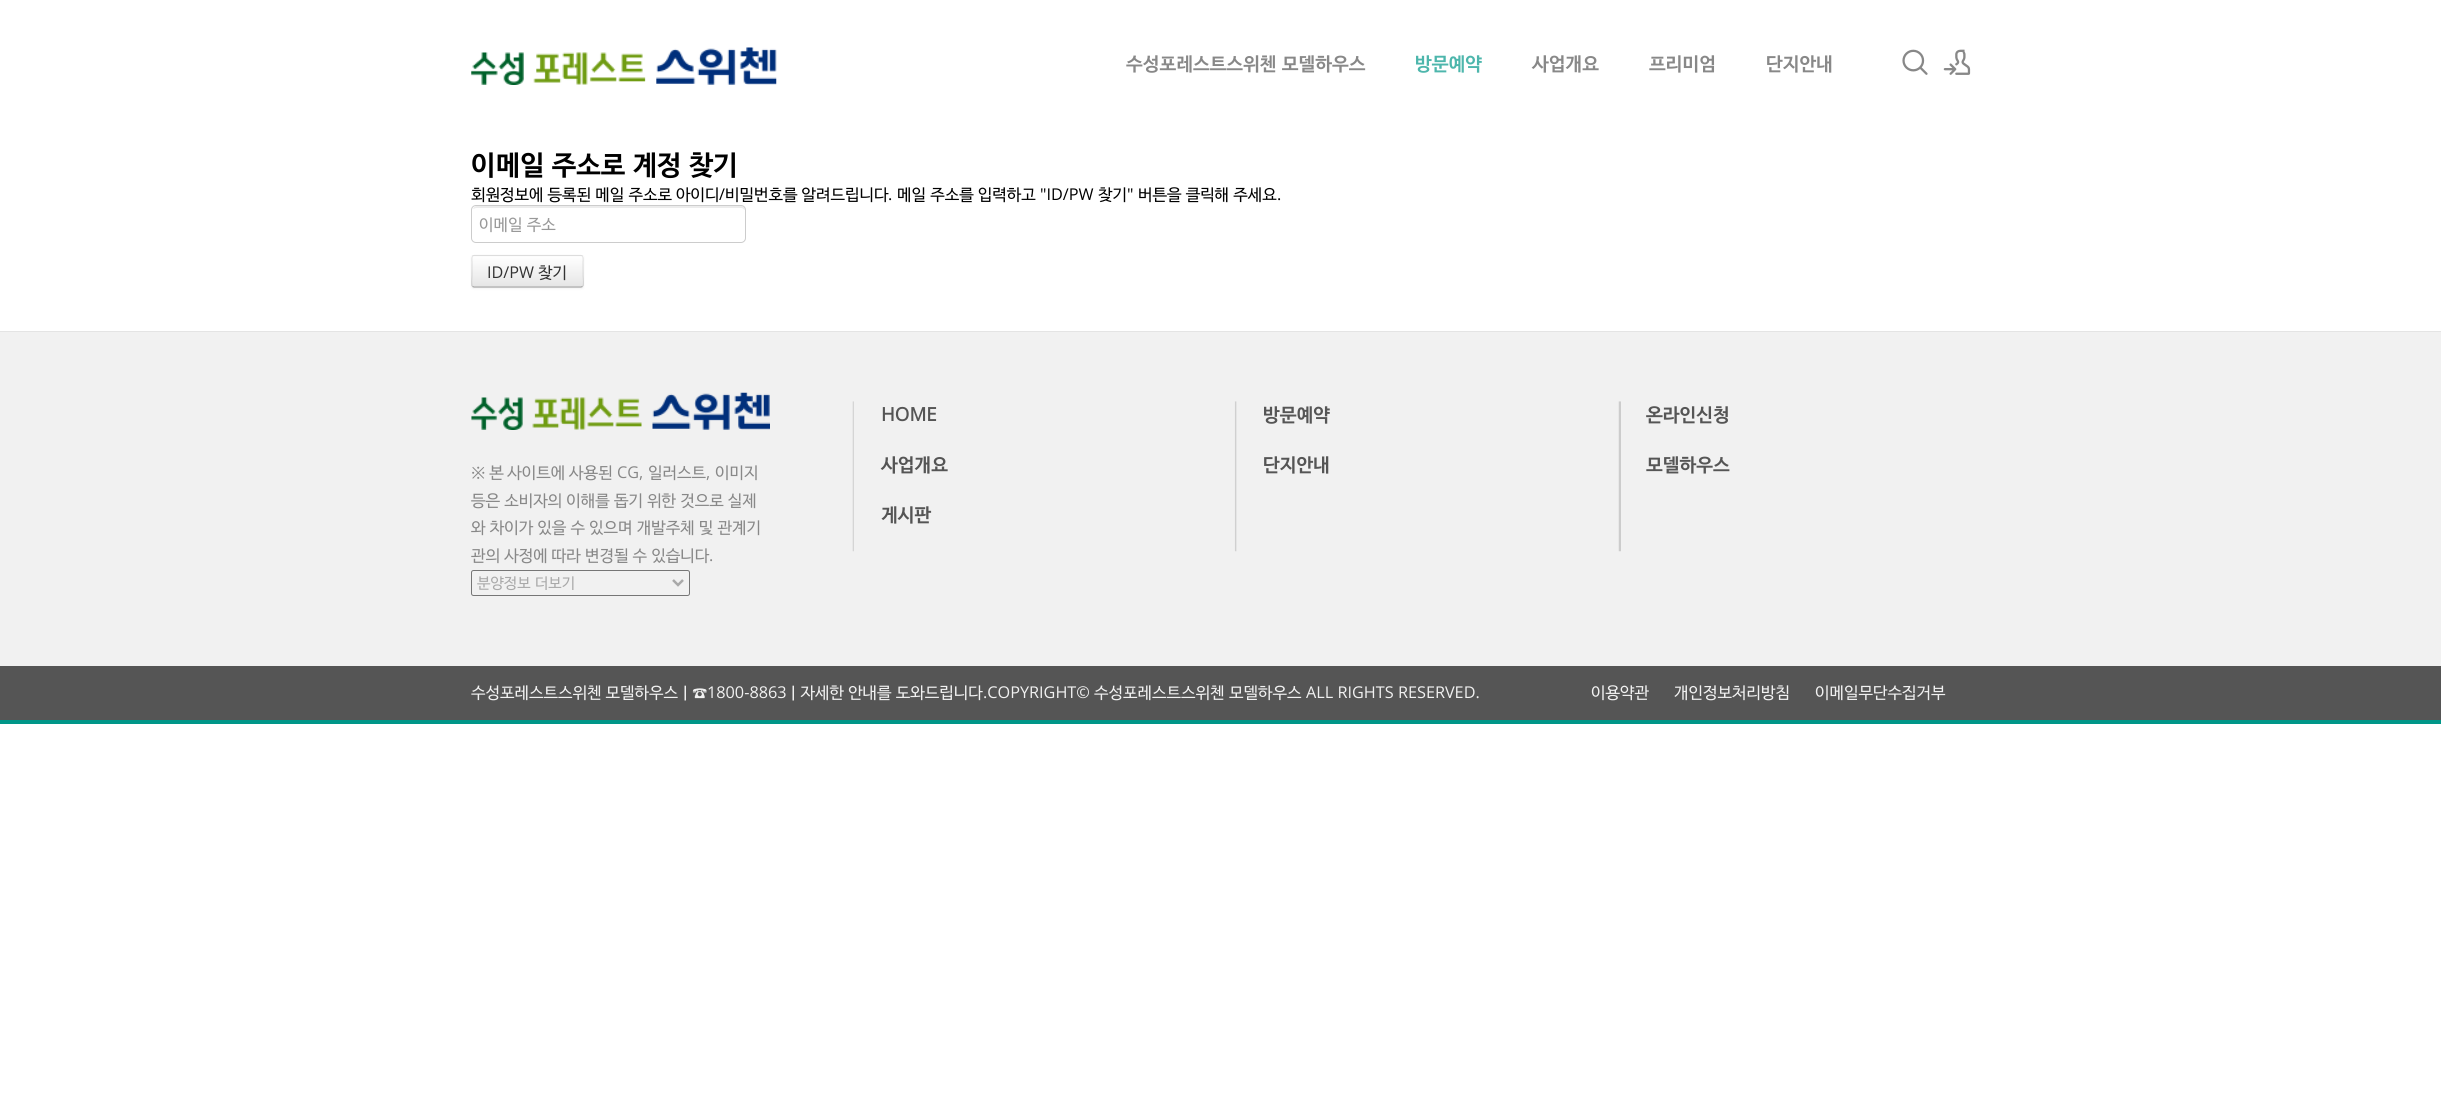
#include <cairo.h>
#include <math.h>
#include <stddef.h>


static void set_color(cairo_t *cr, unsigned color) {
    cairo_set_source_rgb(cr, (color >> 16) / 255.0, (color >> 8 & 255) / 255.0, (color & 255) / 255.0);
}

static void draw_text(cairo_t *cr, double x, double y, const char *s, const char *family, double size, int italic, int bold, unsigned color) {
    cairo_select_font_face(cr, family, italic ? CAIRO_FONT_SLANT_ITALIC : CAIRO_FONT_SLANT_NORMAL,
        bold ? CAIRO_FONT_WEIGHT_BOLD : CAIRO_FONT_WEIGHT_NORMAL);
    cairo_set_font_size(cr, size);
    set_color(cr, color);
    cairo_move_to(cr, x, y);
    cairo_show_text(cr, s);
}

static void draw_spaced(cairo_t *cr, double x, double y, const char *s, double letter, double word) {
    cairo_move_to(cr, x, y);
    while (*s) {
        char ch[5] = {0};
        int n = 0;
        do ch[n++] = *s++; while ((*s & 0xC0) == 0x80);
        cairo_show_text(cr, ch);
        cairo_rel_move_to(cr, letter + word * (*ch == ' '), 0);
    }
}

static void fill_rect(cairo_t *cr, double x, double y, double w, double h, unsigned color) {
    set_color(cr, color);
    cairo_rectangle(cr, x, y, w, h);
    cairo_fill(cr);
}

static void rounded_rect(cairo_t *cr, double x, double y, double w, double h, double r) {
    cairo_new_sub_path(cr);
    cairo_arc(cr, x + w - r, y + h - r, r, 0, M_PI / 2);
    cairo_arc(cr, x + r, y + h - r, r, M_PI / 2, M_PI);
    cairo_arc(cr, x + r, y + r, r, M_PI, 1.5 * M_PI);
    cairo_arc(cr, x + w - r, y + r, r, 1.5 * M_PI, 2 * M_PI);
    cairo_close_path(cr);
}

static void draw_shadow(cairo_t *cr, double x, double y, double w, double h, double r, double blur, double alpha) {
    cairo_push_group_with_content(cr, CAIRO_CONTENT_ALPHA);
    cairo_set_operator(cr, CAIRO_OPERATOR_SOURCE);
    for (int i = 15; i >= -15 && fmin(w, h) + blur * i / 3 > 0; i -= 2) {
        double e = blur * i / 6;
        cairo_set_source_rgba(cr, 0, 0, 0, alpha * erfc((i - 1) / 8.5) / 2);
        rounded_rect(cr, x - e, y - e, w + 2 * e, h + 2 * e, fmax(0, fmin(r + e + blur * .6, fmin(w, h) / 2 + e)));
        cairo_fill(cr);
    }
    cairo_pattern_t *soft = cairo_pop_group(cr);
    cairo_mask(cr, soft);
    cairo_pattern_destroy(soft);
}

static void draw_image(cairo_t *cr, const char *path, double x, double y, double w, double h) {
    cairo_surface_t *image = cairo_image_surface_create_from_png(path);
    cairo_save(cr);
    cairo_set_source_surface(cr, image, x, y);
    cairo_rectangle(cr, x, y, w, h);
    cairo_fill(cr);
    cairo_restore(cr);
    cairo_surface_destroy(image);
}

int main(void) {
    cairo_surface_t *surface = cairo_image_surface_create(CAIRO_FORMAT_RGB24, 2441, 1110);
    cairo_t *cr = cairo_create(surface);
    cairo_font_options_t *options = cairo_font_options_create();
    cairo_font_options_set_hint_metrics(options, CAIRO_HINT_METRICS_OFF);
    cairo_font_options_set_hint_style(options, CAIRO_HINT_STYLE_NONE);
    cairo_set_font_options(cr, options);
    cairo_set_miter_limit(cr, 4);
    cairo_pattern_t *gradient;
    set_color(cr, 0xFFFFFF);
    cairo_paint(cr);
    draw_image(cr, "assets/img1.png", 471, 47, 306, 38);
    cairo_select_font_face(cr, "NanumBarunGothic", CAIRO_FONT_SLANT_NORMAL, CAIRO_FONT_WEIGHT_BOLD);
    cairo_set_font_size(cr, 18.75);
    set_color(cr, 0x888888);
    draw_spaced(cr, 1126, 70, "수성포레스트스위첸 모델하우스", 0, 1);
    draw_text(cr, 1415, 70, "방문예약", "NanumBarunGothic", 18.75, 0, 1, 0x4DB6AC);
    draw_text(cr, 1532, 70, "사업개요", "NanumBarunGothic", 18.75, 0, 1, 0x888888);
    draw_text(cr, 1649, 70, "프리미엄", "NanumBarunGothic", 18.75, 0, 1, 0x888888);
    draw_text(cr, 1766, 70, "단지안내", "NanumBarunGothic", 18.75, 0, 1, 0x888888);
    draw_image(cr, "assets/img2.png", 1902, 49, 26, 26);
    draw_image(cr, "assets/img3.png", 1943, 49, 28, 26);
    cairo_set_font_size(cr, 27.5);
    set_color(cr, 0x000000);
    draw_spaced(cr, 471, 174, "이메일 주소로 계정 찾기", 0, 1);
    cairo_select_font_face(cr, "NanumBarunGothic", CAIRO_FONT_SLANT_NORMAL, CAIRO_FONT_WEIGHT_NORMAL);
    cairo_set_font_size(cr, 16.25);
    draw_spaced(cr, 471, 200, "회원정보에 등록된 메일 주소로 아이디", 0, 0.5);
    draw_text(cr, 719, 200, "/", "Open Sans", 16.25, 0, 0, 0x000000);
    cairo_select_font_face(cr, "NanumBarunGothic", CAIRO_FONT_SLANT_NORMAL, CAIRO_FONT_WEIGHT_NORMAL);
    draw_spaced(cr, 725, 200, "비밀번호를 알려드립니다", 0, 0.5);
    draw_spaced(cr, 897, 200, "메일 주소를 입력하고", 0, 0.5);
    draw_text(cr, 1040, 200, "\"ID/PW", "Open Sans", 16.25, 0, 0, 0x000000);
    draw_text(cr, 1098, 200, "찾기", "NanumBarunGothic", 16.25, 0, 0, 0x000000);
    draw_text(cr, 1127, 200, "\"", "Open Sans", 16.25, 0, 0, 0x000000);
    cairo_select_font_face(cr, "NanumBarunGothic", CAIRO_FONT_SLANT_NORMAL, CAIRO_FONT_WEIGHT_NORMAL);
    draw_spaced(cr, 1138, 200, "버튼을 클릭해 주세요", 0, 0.5);
    draw_text(cr, 888, 200, ".", "Open Sans", 16.25, 0, 0, 0x000000);
    draw_text(cr, 1277, 200, ".", "Open Sans", 16.25, 0, 0, 0x000000);
    set_color(cr, 0xECECEC);
    cairo_new_path(cr);
    cairo_move_to(cr, 476, 208);
    cairo_line_to(cr, 742, 208);
    cairo_line_to(cr, 745, 210);
    cairo_line_to(cr, 745, 211);
    cairo_line_to(cr, 745, 210);
    cairo_curve_to(cr, 745, 208, 743, 206, 741, 206);
    cairo_line_to(cr, 477, 206);
    cairo_curve_to(cr, 475, 206, 474, 207, 473, 209);
    cairo_close_path(cr);
    cairo_fill(cr);
    rounded_rect(cr, 471.5, 205.5, 274, 37, 4.5);
    set_color(cr, 0xCCCCCC);
    cairo_set_line_width(cr, 1);
    cairo_stroke(cr);
    cairo_select_font_face(cr, "NanumBarunGothic", CAIRO_FONT_SLANT_NORMAL, CAIRO_FONT_WEIGHT_NORMAL);
    set_color(cr, 0x999999);
    draw_spaced(cr, 479, 230, "이메일 주소", 0, 0.5);
    set_color(cr, 0x000000);
    draw_shadow(cr, 471, 256, 113, 33, 2.5, 1, 0.05);
    set_color(cr, 0xF5F5F5);
    rounded_rect(cr, 471, 255, 113, 33, 2.5);
    cairo_fill(cr);
    gradient = cairo_pattern_create_linear(528, 256, 528, 286);
    cairo_pattern_add_color_stop_rgba(gradient, 0, 1, 1, 1, 1);
    cairo_pattern_add_color_stop_rgba(gradient, 1, 0.902, 0.902, 0.902, 1);
    cairo_set_source(cr, gradient);
    cairo_pattern_destroy(gradient);
    cairo_rectangle(cr, 471, 256, 113, 30);
    cairo_fill(cr);
    cairo_set_source_rgba(cr, 1, 1, 1, 0.2);
    cairo_new_path(cr);
    cairo_move_to(cr, 474, 258);
    cairo_line_to(cr, 581, 258);
    cairo_curve_to(cr, 582, 258, 582, 258, 582, 259);
    cairo_line_to(cr, 582, 286);
    cairo_curve_to(cr, 583, 286, 583, 286, 583, 285);
    cairo_line_to(cr, 583, 257);
    cairo_curve_to(cr, 583, 256, 583, 256, 582, 256);
    cairo_line_to(cr, 474, 256);
    cairo_curve_to(cr, 473, 256, 473, 256, 473, 257);
    cairo_line_to(cr, 473, 258);
    cairo_close_path(cr);
    cairo_fill(cr);
    cairo_new_path(cr);
    cairo_move_to(cr, 582.5, 286.5);
    cairo_line_to(cr, 581, 287);
    cairo_line_to(cr, 474, 287);
    cairo_line_to(cr, 472.5, 286.5);
    set_color(cr, 0xA2A2A2);
    cairo_set_line_width(cr, 1.2);
    cairo_stroke(cr);
    cairo_new_path(cr);
    cairo_move_to(cr, 472.5, 286.5);
    cairo_curve_to(cr, 471, 284.5, 472, 278, 472, 276);
    cairo_line_to(cr, 472, 262);
    cairo_curve_to(cr, 472, 261, 471, 255.5, 474, 255.5);
    cairo_line_to(cr, 581, 255.5);
    cairo_curve_to(cr, 584, 255.5, 583, 261, 583, 262);
    cairo_line_to(cr, 583, 276);
    cairo_curve_to(cr, 583, 278, 584, 284.5, 582.5, 286.5);
    cairo_set_source_rgba(cr, 0, 0, 0, 0.1);
    cairo_stroke(cr);
    draw_text(cr, 487, 278, "ID/PW", "Open Sans", 16.25, 0, 0, 0x333333);
    draw_text(cr, 538, 278, "찾기", "NanumBarunGothic", 16.25, 0, 0, 0x333333);
    fill_rect(cr, 0, 332, 2441, 334, 0xF1F1F1);
    fill_rect(cr, 0, 331, 2441, 1, 0xE4E4E4);
    fill_rect(cr, 0, 720, 2441, 4, 0x009688);
    draw_image(cr, "assets/img4.png", 471, 392, 299, 38);
    draw_text(cr, 471, 478, "※ 본 사이트에 사용된", "NanumBarunGothic", 16.25, 0, 0, 0x888888);
    draw_text(cr, 617, 478, "CG,", "Open Sans", 16.25, 0, 0, 0x888888);
    draw_text(cr, 648, 478, "일러스트", "NanumBarunGothic", 16.25, 0, 0, 0x888888);
    draw_text(cr, 706, 478, ",", "Open Sans", 16.25, 0, 0, 0x888888);
    draw_text(cr, 715, 478, "이미지", "NanumBarunGothic", 16.25, 0, 0, 0x888888);
    draw_spaced(cr, 471, 506, "등은 소비자의 이해를 돕기 위한 것으로 실제", 0, 0.5);
    draw_spaced(cr, 471, 533, "와 차이가 있을 수 있으며 개발주체 및 관계기", 0, 0.5);
    draw_spaced(cr, 471, 561, "관의 사정에 따라 변경될 수 있습니다", 0, 0.5);
    draw_text(cr, 709, 561, ".", "Open Sans", 16.25, 0, 0, 0x888888);
    rounded_rect(cr, 471.5, 570.5, 218, 25, 2);
    set_color(cr, 0x767676);
    cairo_set_line_width(cr, 1);
    cairo_stroke(cr);
    cairo_new_path(cr);
    cairo_move_to(cr, 673, 580);
    cairo_line_to(cr, 678, 585);
    cairo_line_to(cr, 683, 580);
    set_color(cr, 0xA9A9A9);
    cairo_set_line_width(cr, 2.5);
    cairo_stroke(cr);
    cairo_select_font_face(cr, "NanumBarunGothic", CAIRO_FONT_SLANT_NORMAL, CAIRO_FONT_WEIGHT_NORMAL);
    cairo_set_font_size(cr, 15);
    draw_spaced(cr, 477, 588, "분양정보 더보기", 0, 1);
    draw_image(cr, "assets/img5.png", 852, 401, 769, 151);
    draw_text(cr, 881, 421, "HOME", "Open Sans", 18.75, 0, 1, 0x555555);
    draw_text(cr, 1263, 421, "방문예약", "NanumBarunGothic", 18.75, 0, 1, 0x555555);
    draw_text(cr, 1646, 421, "온라인신청", "NanumBarunGothic", 18.75, 0, 1, 0x555555);
    draw_text(cr, 881, 471, "사업개요", "NanumBarunGothic", 18.75, 0, 1, 0x555555);
    draw_text(cr, 1263, 471, "단지안내", "NanumBarunGothic", 18.75, 0, 1, 0x555555);
    draw_text(cr, 1646, 471, "모델하우스", "NanumBarunGothic", 18.75, 0, 1, 0x555555);
    draw_text(cr, 881, 521, "게시판", "NanumBarunGothic", 18.75, 0, 1, 0x555555);
    fill_rect(cr, 0, 666, 2441, 54, 0x555555);
    cairo_select_font_face(cr, "NanumBarunGothic", CAIRO_FONT_SLANT_NORMAL, CAIRO_FONT_WEIGHT_NORMAL);
    cairo_set_font_size(cr, 16.25);
    set_color(cr, 0xF1F1F1);
    draw_spaced(cr, 471, 698, "수성포레스트스위첸 모델하우스ㅣ☎", 0, 0.5);
    draw_text(cr, 707, 698, "1800-8863", "Open Sans", 16.25, 0, 0, 0xF1F1F1);
    cairo_select_font_face(cr, "NanumBarunGothic", CAIRO_FONT_SLANT_NORMAL, CAIRO_FONT_WEIGHT_NORMAL);
    draw_spaced(cr, 786, 698, "ㅣ자세한 안내를 도와드립니다", 0, 0.5);
    draw_text(cr, 983, 698, ".COPYRIGHT©", "Open Sans", 16.25, 0, 0, 0xF1F1F1);
    draw_text(cr, 1094, 698, "수성포레스트스위첸", "NanumBarunGothic", 16.25, 0, 0, 0xF1F1F1);
    draw_text(cr, 1229, 698, "모델하우스", "NanumBarunGothic", 16.25, 0, 0, 0xF1F1F1);
    draw_text(cr, 1306, 698, "ALL RIGHTS RESERVED.", "Open Sans", 16.25, 0, 0, 0xF1F1F1);
    draw_text(cr, 1591, 698, "이용약관", "NanumBarunGothic", 16.25, 0, 0, 0xF1F1F1);
    draw_text(cr, 1674, 698, "개인정보처리방침", "NanumBarunGothic", 16.25, 0, 0, 0xF1F1F1);
    draw_text(cr, 1815, 698, "이메일무단수집거부", "NanumBarunGothic", 16.25, 0, 0, 0xF1F1F1);
    cairo_surface_write_to_png(surface, "output.png");
    cairo_font_options_destroy(options);
    cairo_destroy(cr);
    cairo_surface_destroy(surface);
    return 0;
}
